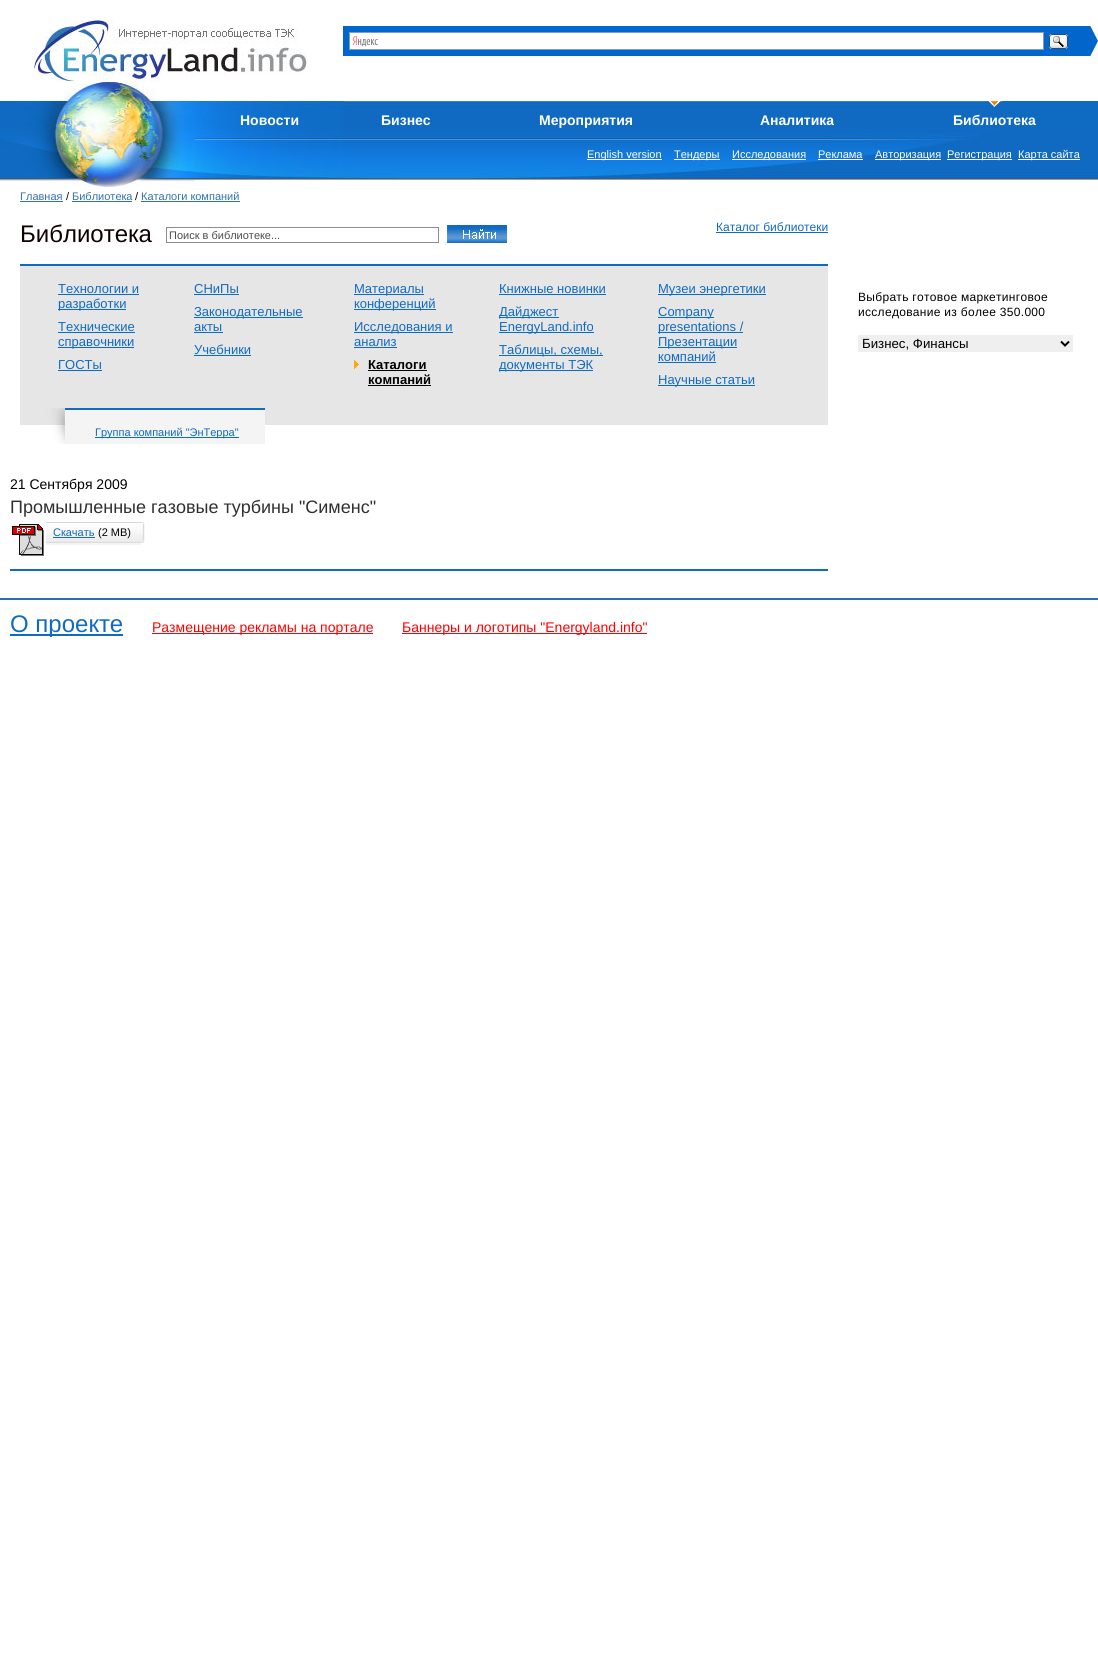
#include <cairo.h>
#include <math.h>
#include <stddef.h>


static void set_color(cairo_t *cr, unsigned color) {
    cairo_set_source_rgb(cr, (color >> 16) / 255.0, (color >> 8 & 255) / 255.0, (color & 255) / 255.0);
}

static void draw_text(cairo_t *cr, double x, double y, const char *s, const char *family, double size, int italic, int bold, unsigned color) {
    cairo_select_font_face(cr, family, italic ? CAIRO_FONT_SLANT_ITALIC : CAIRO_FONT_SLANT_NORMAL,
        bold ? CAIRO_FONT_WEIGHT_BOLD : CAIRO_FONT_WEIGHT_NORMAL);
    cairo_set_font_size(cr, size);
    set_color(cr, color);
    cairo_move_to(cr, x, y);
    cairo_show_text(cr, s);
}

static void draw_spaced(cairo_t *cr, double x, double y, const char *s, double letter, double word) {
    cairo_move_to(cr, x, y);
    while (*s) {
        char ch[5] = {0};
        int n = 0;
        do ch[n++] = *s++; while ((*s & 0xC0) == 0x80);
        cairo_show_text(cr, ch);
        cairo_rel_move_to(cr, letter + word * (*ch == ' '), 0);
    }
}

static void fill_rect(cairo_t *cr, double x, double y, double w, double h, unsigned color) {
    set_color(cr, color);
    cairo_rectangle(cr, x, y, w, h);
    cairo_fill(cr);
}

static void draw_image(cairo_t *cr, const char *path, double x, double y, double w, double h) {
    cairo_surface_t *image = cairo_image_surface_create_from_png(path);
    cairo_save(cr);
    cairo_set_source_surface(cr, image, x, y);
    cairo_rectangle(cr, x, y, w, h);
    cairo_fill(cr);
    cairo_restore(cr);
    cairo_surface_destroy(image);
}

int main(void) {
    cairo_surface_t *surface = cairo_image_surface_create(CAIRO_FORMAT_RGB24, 1098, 1655);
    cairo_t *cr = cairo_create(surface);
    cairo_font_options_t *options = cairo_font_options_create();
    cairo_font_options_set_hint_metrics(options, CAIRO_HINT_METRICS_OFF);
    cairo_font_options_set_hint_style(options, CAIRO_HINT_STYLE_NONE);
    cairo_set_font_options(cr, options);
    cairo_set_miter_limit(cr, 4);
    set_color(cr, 0xFFFFFF);
    cairo_paint(cr);
    draw_image(cr, "assets/img1.png", 34, 20, 273, 62);
    fill_rect(cr, 343, 26, 725, 30, 0x0066CC);
    fill_rect(cr, 350, 33, 693, 16, 0xFFFFFF);
    draw_image(cr, "assets/img2.png", 352, 36, 26, 11);
    cairo_rectangle(cr, 349.5, 32.5, 694, 17);
    set_color(cr, 0x7F9DB9);
    cairo_set_line_width(cr, 1);
    cairo_stroke(cr);
    draw_image(cr, "assets/img3.png", 1049, 34, 19, 15);
    cairo_save(cr);
    cairo_rectangle(cr, 1068, 26, 30, 30);
    cairo_clip(cr);
    set_color(cr, 0x0066CC);
    cairo_new_path(cr);
    cairo_move_to(cr, 1068, 100);
    cairo_line_to(cr, 1068, -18);
    cairo_line_to(cr, 1098, 41);
    cairo_close_path(cr);
    cairo_fill(cr);
    cairo_restore(cr);
    draw_image(cr, "assets/img4.png", 0, 82, 195, 105);
    fill_rect(cr, 1002, 101, 96, 39, 0x0F6AC1);
    draw_image(cr, "assets/img5.png", 195, 101, 807, 39);
    draw_text(cr, 240, 125, "Новости", "Liberation Sans", 14, 0, 1, 0xFFFFFF);
    draw_text(cr, 381, 125, "Бизнес", "Liberation Sans", 14, 0, 1, 0xFFFFFF);
    draw_text(cr, 539, 125, "Мероприятия", "Liberation Sans", 14, 0, 1, 0xFFFFFF);
    draw_text(cr, 760, 125, "Аналитика", "Liberation Sans", 14, 0, 1, 0xFFFFFF);
    draw_image(cr, "assets/img6.png", 986, 101, 17, 6);
    draw_text(cr, 953, 125, "Библиотека", "Liberation Sans", 14, 0, 1, 0xFFFFFF);
    draw_image(cr, "assets/img7.png", 195, 140, 903, 40);
    fill_rect(cr, 587, 159, 75, 1, 0xFFFFFF);
    draw_text(cr, 587, 158, "English version", "Liberation Sans", 11, 0, 0, 0xFFFFFF);
    fill_rect(cr, 674, 159, 46, 1, 0xFFFFFF);
    draw_text(cr, 674, 158, "Тендеры", "Liberation Sans", 11, 0, 0, 0xFFFFFF);
    fill_rect(cr, 732, 159, 74, 1, 0xFFFFFF);
    draw_text(cr, 732, 158, "Исследования", "Liberation Sans", 11, 0, 0, 0xFFFFFF);
    draw_text(cr, 818, 158, "Реклама", "Liberation Sans", 11, 0, 0, 0xFFFFFF);
    fill_rect(cr, 818, 159, 45, 1, 0xFFFFFF);
    fill_rect(cr, 875, 159, 66, 1, 0xFFFFFF);
    draw_text(cr, 875, 158, "Авторизация", "Liberation Sans", 11, 0, 0, 0xFFFFFF);
    fill_rect(cr, 947, 159, 65, 1, 0xFFFFFF);
    draw_text(cr, 947, 158, "Регистрация", "Liberation Sans", 11, 0, 0, 0xFFFFFF);
    fill_rect(cr, 1018, 159, 62, 1, 0xFFFFFF);
    draw_text(cr, 1018, 158, "Карта сайта", "Liberation Sans", 11, 0, 0, 0xFFFFFF);
    draw_text(cr, 20, 200, "Главная", "Liberation Sans", 11, 0, 0, 0x3272B0);
    fill_rect(cr, 20, 201, 43, 1, 0x3272B0);
    draw_text(cr, 66, 200, "/", "Liberation Sans", 11, 0, 0, 0x000000);
    draw_text(cr, 72, 200, "Библиотека", "Liberation Sans", 11, 0, 0, 0x3272B0);
    fill_rect(cr, 72, 201, 60, 1, 0x3272B0);
    draw_text(cr, 135, 200, "/", "Liberation Sans", 11, 0, 0, 0x000000);
    draw_text(cr, 141, 200, "Каталоги компаний", "Liberation Sans", 11, 0, 0, 0x3272B0);
    fill_rect(cr, 141, 201, 99, 1, 0x3272B0);
    draw_text(cr, 20, 242, "Библиотека", "Liberation Sans", 24, 0, 0, 0x0F0001);
    cairo_rectangle(cr, 166.5, 227.5, 272, 15);
    set_color(cr, 0x8E8C8D);
    cairo_stroke(cr);
    draw_text(cr, 169, 239, "Поиск в библиотеке...", "Liberation Sans", 11, 0, 0, 0x4C4C4C);
    draw_image(cr, "assets/img8.png", 447, 225, 60, 18);
    draw_text(cr, 716, 231, "Каталог библиотеки", "Liberation Sans", 12, 0, 0, 0x0F6BC2);
    fill_rect(cr, 716, 232, 112, 1, 0x0F6BC2);
    fill_rect(cr, 20, 266, 808, 159, 0xE6E6E6);
    fill_rect(cr, 20, 264, 808, 2, 0x0F6AC1);
    draw_text(cr, 58, 293, "Технологии и", "Liberation Sans", 13, 0, 0, 0x0F6BC2);
    fill_rect(cr, 58, 294, 81, 1, 0x0F6BC2);
    fill_rect(cr, 58, 309, 68, 1, 0x0F6BC2);
    draw_text(cr, 58, 308, "разработки", "Liberation Sans", 13, 0, 0, 0x0F6BC2);
    draw_text(cr, 58, 331, "Технические", "Liberation Sans", 13, 0, 0, 0x0F6BC2);
    fill_rect(cr, 58, 332, 77, 1, 0x0F6BC2);
    fill_rect(cr, 58, 347, 76, 1, 0x0F6BC2);
    draw_text(cr, 58, 346, "справочники", "Liberation Sans", 13, 0, 0, 0x0F6BC2);
    draw_text(cr, 58, 369, "ГОСТы", "Liberation Sans", 13, 0, 0, 0x0F6BC2);
    fill_rect(cr, 58, 370, 44, 1, 0x0F6BC2);
    draw_text(cr, 194, 293, "СНиПы", "Liberation Sans", 13, 0, 0, 0x0F6BC2);
    fill_rect(cr, 194, 294, 45, 1, 0x0F6BC2);
    fill_rect(cr, 194, 317, 109, 1, 0x0F6BC2);
    draw_text(cr, 194, 316, "Законодательные", "Liberation Sans", 13, 0, 0, 0x0F6BC2);
    draw_text(cr, 194, 331, "акты", "Liberation Sans", 13, 0, 0, 0x0F6BC2);
    fill_rect(cr, 194, 332, 29, 1, 0x0F6BC2);
    draw_text(cr, 194, 354, "Учебники", "Liberation Sans", 13, 0, 0, 0x0F6BC2);
    fill_rect(cr, 194, 355, 57, 1, 0x0F6BC2);
    fill_rect(cr, 354, 294, 70, 1, 0x0F6BC2);
    draw_text(cr, 354, 293, "Материалы", "Liberation Sans", 13, 0, 0, 0x0F6BC2);
    fill_rect(cr, 354, 309, 82, 1, 0x0F6BC2);
    draw_text(cr, 354, 308, "конференций", "Liberation Sans", 13, 0, 0, 0x0F6BC2);
    fill_rect(cr, 354, 332, 99, 1, 0x0F6BC2);
    draw_text(cr, 354, 331, "Исследования и", "Liberation Sans", 13, 0, 0, 0x0F6BC2);
    draw_text(cr, 354, 346, "анализ", "Liberation Sans", 13, 0, 0, 0x0F6BC2);
    fill_rect(cr, 354, 347, 43, 1, 0x0F6BC2);
    draw_image(cr, "assets/img9.png", 354, 360, 5, 9);
    draw_text(cr, 368, 369, "Каталоги", "Liberation Sans", 13, 0, 1, 0x000000);
    fill_rect(cr, 368, 370, 59, 1, 0x000000);
    draw_text(cr, 368, 384, "компаний", "Liberation Sans", 13, 0, 1, 0x000000);
    fill_rect(cr, 368, 385, 63, 1, 0x000000);
    draw_text(cr, 499, 293, "Книжные новинки", "Liberation Sans", 13, 0, 0, 0x0F6BC2);
    fill_rect(cr, 499, 294, 107, 1, 0x0F6BC2);
    fill_rect(cr, 499, 317, 60, 1, 0x0F6BC2);
    draw_text(cr, 499, 316, "Дайджест", "Liberation Sans", 13, 0, 0, 0x0F6BC2);
    fill_rect(cr, 499, 332, 95, 1, 0x0F6BC2);
    draw_text(cr, 499, 331, "EnergyLand.info", "Liberation Sans", 13, 0, 0, 0x0F6BC2);
    fill_rect(cr, 499, 355, 104, 1, 0x0F6BC2);
    draw_text(cr, 499, 354, "Таблицы, схемы,", "Liberation Sans", 13, 0, 0, 0x0F6BC2);
    fill_rect(cr, 499, 370, 94, 1, 0x0F6BC2);
    draw_text(cr, 499, 369, "документы ТЭК", "Liberation Sans", 13, 0, 0, 0x0F6BC2);
    fill_rect(cr, 658, 294, 108, 1, 0x0F6BC2);
    draw_text(cr, 658, 293, "Музеи энергетики", "Liberation Sans", 13, 0, 0, 0x0F6BC2);
    fill_rect(cr, 658, 317, 56, 1, 0x0F6BC2);
    draw_text(cr, 658, 316, "Company", "Liberation Sans", 13, 0, 0, 0x0F6BC2);
    fill_rect(cr, 658, 332, 85, 1, 0x0F6BC2);
    draw_text(cr, 658, 331, "presentations /", "Liberation Sans", 13, 0, 0, 0x0F6BC2);
    fill_rect(cr, 658, 347, 79, 1, 0x0F6BC2);
    draw_text(cr, 658, 346, "Презентации", "Liberation Sans", 13, 0, 0, 0x0F6BC2);
    draw_text(cr, 658, 361, "компаний", "Liberation Sans", 13, 0, 0, 0x0F6BC2);
    fill_rect(cr, 658, 362, 58, 1, 0x0F6BC2);
    fill_rect(cr, 658, 385, 97, 1, 0x0F6BC2);
    draw_text(cr, 658, 384, "Научные статьи", "Liberation Sans", 13, 0, 0, 0x0F6BC2);
    draw_image(cr, "assets/img10.png", 40, 408, 25, 36);
    fill_rect(cr, 65, 410, 200, 34, 0xF4F4F4);
    fill_rect(cr, 65, 408, 200, 2, 0x0F6AC1);
    fill_rect(cr, 95, 437, 144, 1, 0x0F6BC2);
    draw_text(cr, 95, 436, "Группа компаний \"ЭнТерра\"", "Liberation Sans", 11, 0, 0, 0x0F6BC2);
    draw_text(cr, 10, 489, "21 Сентября 2009", "Liberation Sans", 14, 0, 0, 0x000000);
    draw_text(cr, 10, 513, "Промышленные газовые турбины \"Сименс\"", "Liberation Sans", 18, 0, 0, 0x303030);
    draw_image(cr, "assets/img11.png", 11, 524, 33, 32);
    fill_rect(cr, 46, 543, 95, 2, 0xF4F4F4);
    draw_image(cr, "assets/img12.png", 46, 522, 95, 21);
    draw_text(cr, 53, 536, "Скачать", "Liberation Sans", 11, 0, 0, 0x0F6BC2);
    fill_rect(cr, 53, 537, 42, 1, 0x0F6BC2);
    draw_text(cr, 98, 536, "(2 MB)", "Liberation Sans", 11, 0, 0, 0x000000);
    draw_image(cr, "assets/img13.png", 141, 522, 4, 21);
    fill_rect(cr, 10, 569, 818, 2, 0x0F6AC1);
    cairo_set_font_size(cr, 12);
    set_color(cr, 0x000000);
    draw_spaced(cr, 858, 301, "Выбрать готовое маркетинговое", 0.3, 0);
    draw_spaced(cr, 858, 316, "исследование из более 350.000", 0.3, 0);
    fill_rect(cr, 858, 335, 215, 17, 0xEFEFEF);
    cairo_new_path(cr);
    cairo_move_to(cr, 1061, 341.5);
    cairo_line_to(cr, 1065, 345.5);
    cairo_line_to(cr, 1069, 341.5);
    set_color(cr, 0x000000);
    cairo_set_line_width(cr, 2);
    cairo_stroke(cr);
    draw_text(cr, 862, 348, "Бизнес, Финансы", "Liberation Sans", 13.25, 0, 0, 0x000000);
    fill_rect(cr, 0, 598, 1098, 2, 0x2571B9);
    fill_rect(cr, 10, 634, 113, 2, 0x0F6BC2);
    draw_text(cr, 10, 632, "О проекте", "Liberation Sans", 24, 0, 0, 0x0F6BC2);
    fill_rect(cr, 152, 633, 221, 1, 0xFF0000);
    draw_text(cr, 152, 632, "Размещение рекламы на портале", "Liberation Sans", 14, 0, 0, 0xFF0000);
    fill_rect(cr, 402, 633, 245, 1, 0xFF0000);
    draw_text(cr, 402, 632, "Баннеры и логотипы \"Energyland.info\"", "Liberation Sans", 14, 0, 0, 0xFF0000);
    cairo_surface_write_to_png(surface, "output.png");
    cairo_font_options_destroy(options);
    cairo_destroy(cr);
    cairo_surface_destroy(surface);
    return 0;
}
